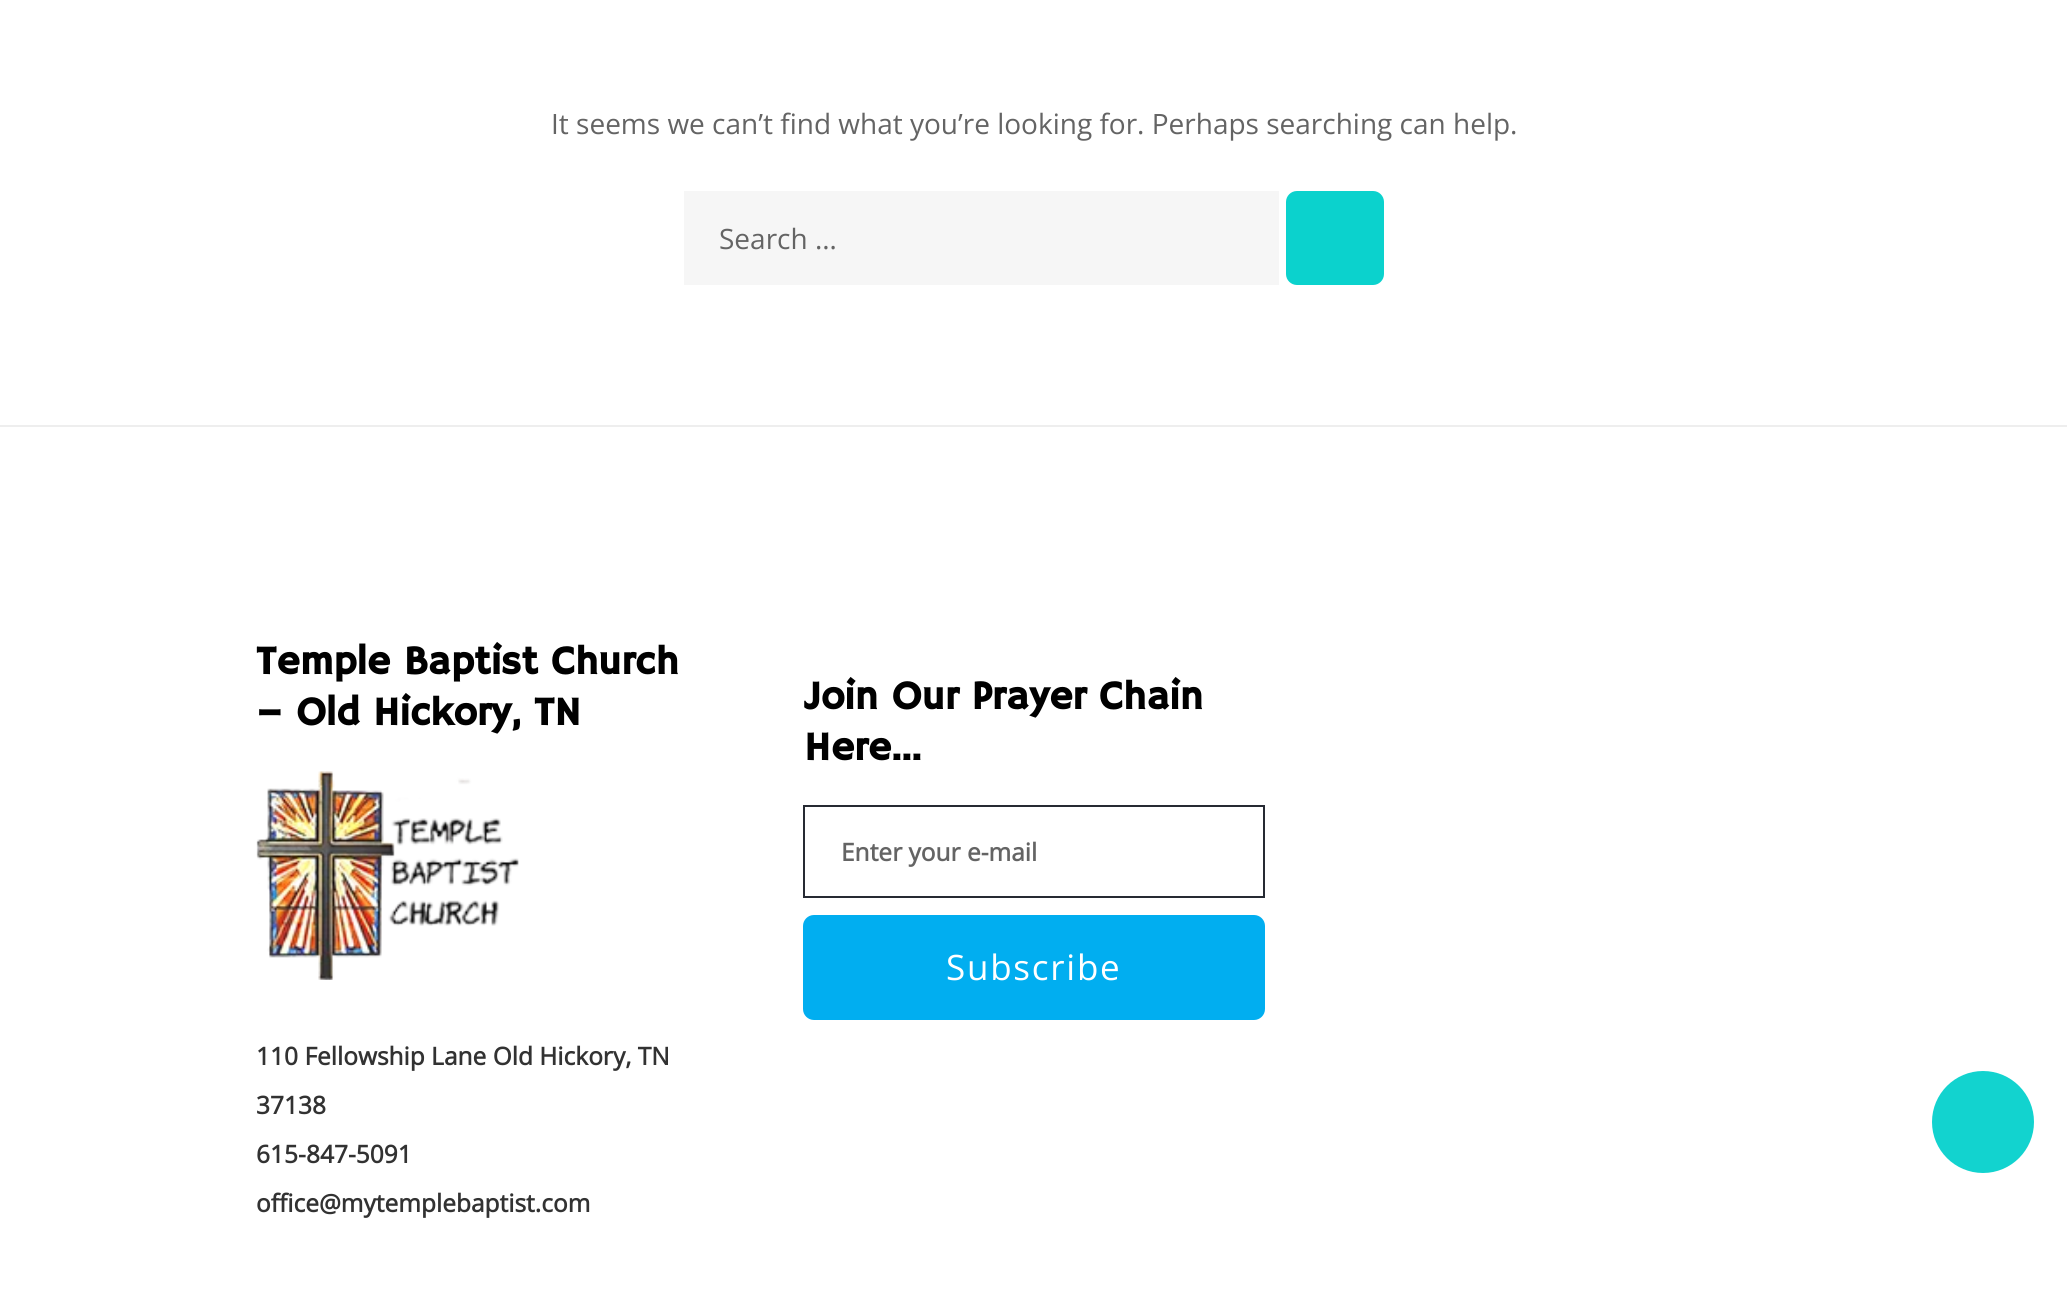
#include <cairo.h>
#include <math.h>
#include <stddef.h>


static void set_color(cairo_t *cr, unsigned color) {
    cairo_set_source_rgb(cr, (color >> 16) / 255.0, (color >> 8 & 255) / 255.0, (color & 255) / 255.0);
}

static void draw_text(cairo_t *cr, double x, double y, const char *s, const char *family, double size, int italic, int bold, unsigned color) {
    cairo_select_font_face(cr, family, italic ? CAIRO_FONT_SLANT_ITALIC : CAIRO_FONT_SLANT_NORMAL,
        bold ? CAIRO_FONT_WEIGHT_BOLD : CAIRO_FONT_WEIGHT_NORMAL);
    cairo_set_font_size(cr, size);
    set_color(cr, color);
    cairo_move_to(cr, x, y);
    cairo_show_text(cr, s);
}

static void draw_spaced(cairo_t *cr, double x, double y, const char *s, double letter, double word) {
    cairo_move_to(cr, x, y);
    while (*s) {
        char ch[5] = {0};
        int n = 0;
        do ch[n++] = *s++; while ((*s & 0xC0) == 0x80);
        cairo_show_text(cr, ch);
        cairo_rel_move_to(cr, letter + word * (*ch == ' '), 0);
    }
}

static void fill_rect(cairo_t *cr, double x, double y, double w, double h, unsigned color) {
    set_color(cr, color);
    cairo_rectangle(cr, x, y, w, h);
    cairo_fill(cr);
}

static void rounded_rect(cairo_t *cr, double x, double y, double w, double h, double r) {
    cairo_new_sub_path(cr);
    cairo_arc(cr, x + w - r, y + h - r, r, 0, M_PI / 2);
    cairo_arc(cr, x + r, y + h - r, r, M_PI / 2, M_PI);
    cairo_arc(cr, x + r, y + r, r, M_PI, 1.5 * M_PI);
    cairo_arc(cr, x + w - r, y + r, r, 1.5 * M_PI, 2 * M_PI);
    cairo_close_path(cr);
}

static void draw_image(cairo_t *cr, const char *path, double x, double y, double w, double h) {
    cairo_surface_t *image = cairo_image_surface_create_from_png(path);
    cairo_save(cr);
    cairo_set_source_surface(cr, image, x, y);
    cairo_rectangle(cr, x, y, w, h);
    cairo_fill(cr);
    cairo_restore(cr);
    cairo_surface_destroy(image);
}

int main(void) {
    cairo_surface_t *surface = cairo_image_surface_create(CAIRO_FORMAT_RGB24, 2067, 1312);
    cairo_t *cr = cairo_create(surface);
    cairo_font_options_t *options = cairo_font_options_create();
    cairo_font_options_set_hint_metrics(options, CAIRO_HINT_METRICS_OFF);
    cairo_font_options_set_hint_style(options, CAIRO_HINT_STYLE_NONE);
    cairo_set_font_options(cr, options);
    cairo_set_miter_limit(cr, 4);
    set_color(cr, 0xFFFFFF);
    cairo_paint(cr);
    draw_text(cr, 551, 134, "It seems we can’t find what you’re looking for. Perhaps searching can help.", "Open Sans", 28, 0, 0, 0x646464);
    fill_rect(cr, 684, 191, 595, 94, 0xF6F6F6);
    draw_text(cr, 719, 249, "Search …", "Open Sans", 28, 0, 0, 0x646464);
    set_color(cr, 0x0BD2CD);
    rounded_rect(cr, 1287, 192, 96, 92, 10);
    cairo_fill_preserve(cr);
    cairo_stroke(cr);
    fill_rect(cr, 0, 425, 2067, 2, 0xEEEEEE);
    draw_text(cr, 256, 674, "Temple Baptist Church", "Hammersmith One", 40.25, 0, 1, 0x000000);
    draw_text(cr, 256, 725, "– Old Hickory, TN", "Hammersmith One", 40.25, 0, 1, 0x000000);
    draw_image(cr, "assets/img1.png", 256, 771, 263, 209);
    draw_text(cr, 256, 1065, "110 Fellowship Lane Old Hickory, TN", "Open Sans", 24.5, 0, 1, 0x323232);
    draw_text(cr, 256, 1114, "37138", "Open Sans", 24.5, 0, 1, 0x323232);
    draw_text(cr, 256, 1163, "615-847-5091", "Open Sans", 24.5, 0, 1, 0x323232);
    draw_text(cr, 256, 1212, "office@mytemplebaptist.com", "Open Sans", 24.5, 0, 1, 0x323232);
    draw_text(cr, 804, 709, "Join Our Prayer Chain", "Hammersmith One", 40.25, 0, 1, 0x000000);
    draw_text(cr, 804, 760, "Here...", "Hammersmith One", 40.25, 0, 1, 0x000000);
    cairo_rectangle(cr, 804, 806, 460, 91);
    set_color(cr, 0x262A33);
    cairo_stroke(cr);
    draw_text(cr, 841, 861, "Enter your e-mail", "Open Sans", 24.5, 0, 1, 0x646464);
    set_color(cr, 0x01AEF0);
    rounded_rect(cr, 804, 916, 460, 103, 10);
    cairo_fill_preserve(cr);
    cairo_stroke(cr);
    cairo_select_font_face(cr, "Open Sans", CAIRO_FONT_SLANT_NORMAL, CAIRO_FONT_WEIGHT_NORMAL);
    cairo_set_font_size(cr, 35);
    set_color(cr, 0xFFFFFF);
    draw_spaced(cr, 946, 980, "Subscribe", 1.75, 0);
    set_color(cr, 0x12D3CF);
    cairo_new_path(cr);
    cairo_arc(cr, 1983, 1122, 51, 0, 2 * M_PI);
    cairo_fill(cr);
    cairo_surface_write_to_png(surface, "output.png");
    cairo_font_options_destroy(options);
    cairo_destroy(cr);
    cairo_surface_destroy(surface);
    return 0;
}
